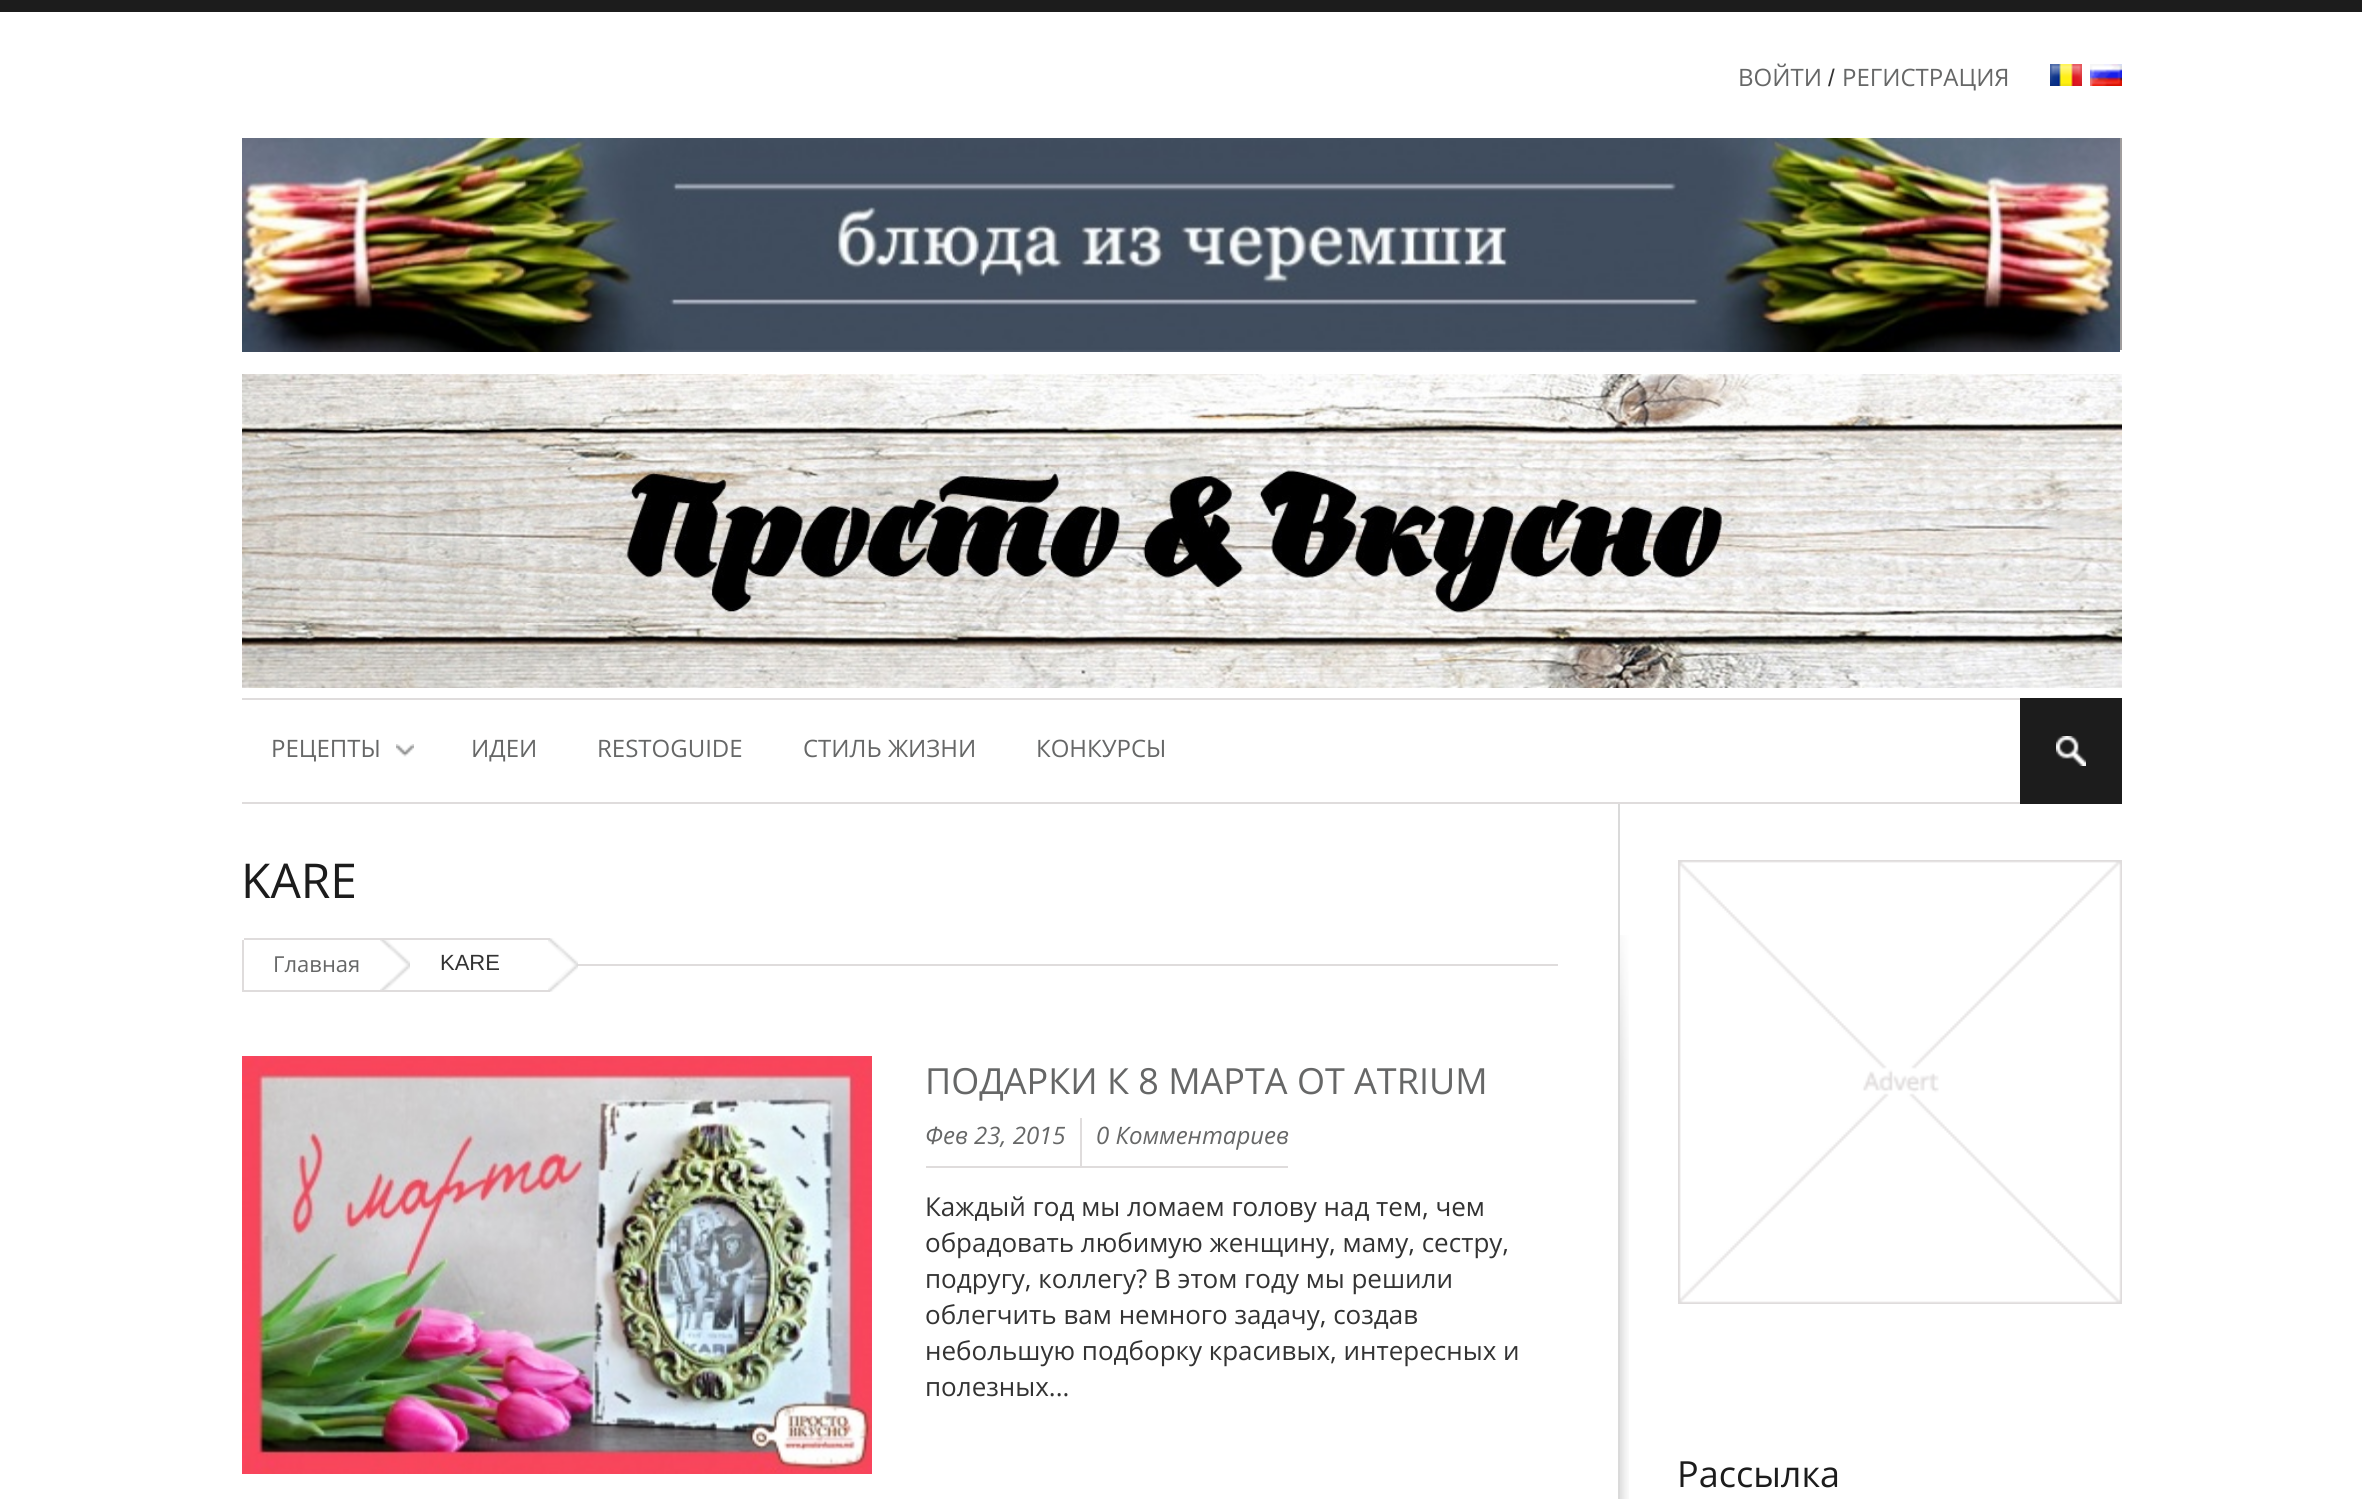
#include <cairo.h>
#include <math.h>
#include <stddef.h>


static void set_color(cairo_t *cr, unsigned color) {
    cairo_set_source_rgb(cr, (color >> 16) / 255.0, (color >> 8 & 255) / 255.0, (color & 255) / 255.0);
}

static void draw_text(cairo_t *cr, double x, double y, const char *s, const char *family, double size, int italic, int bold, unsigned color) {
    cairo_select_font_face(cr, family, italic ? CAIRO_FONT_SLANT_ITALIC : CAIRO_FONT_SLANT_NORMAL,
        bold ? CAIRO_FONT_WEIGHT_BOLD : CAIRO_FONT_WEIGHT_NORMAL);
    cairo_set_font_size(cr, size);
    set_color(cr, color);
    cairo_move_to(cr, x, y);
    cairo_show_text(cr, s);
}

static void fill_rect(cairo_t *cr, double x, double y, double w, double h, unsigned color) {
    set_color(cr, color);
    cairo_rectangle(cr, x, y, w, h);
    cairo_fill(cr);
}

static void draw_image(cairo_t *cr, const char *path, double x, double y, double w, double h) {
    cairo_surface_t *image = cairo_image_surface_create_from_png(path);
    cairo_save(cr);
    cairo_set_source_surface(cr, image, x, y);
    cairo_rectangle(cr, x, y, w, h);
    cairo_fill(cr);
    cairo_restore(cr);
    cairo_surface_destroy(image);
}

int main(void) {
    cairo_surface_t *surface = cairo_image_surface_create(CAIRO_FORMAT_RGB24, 2362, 1499);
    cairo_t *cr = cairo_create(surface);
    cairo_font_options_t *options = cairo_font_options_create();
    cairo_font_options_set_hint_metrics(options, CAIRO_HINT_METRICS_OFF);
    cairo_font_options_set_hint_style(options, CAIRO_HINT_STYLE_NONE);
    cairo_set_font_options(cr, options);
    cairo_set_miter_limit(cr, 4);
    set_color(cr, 0xFFFFFF);
    cairo_paint(cr);
    fill_rect(cr, 0, 0, 2362, 12, 0x1C1C1C);
    draw_text(cr, 1738, 86, "ВОЙТИ", "Open Sans", 24, 0, 0, 0x666767);
    draw_text(cr, 1828, 86, "/", "Liberation Sans", 24, 0, 0, 0x333333);
    draw_text(cr, 1842, 86, "РЕГИСТРАЦИЯ", "Open Sans", 24, 0, 0, 0x666767);
    draw_image(cr, "assets/img1.png", 2050, 64, 32, 22);
    draw_image(cr, "assets/img2.png", 2090, 64, 32, 22);
    fill_rect(cr, 2120, 138, 2, 212, 0xA09D9D);
    draw_image(cr, "assets/img3.png", 242, 138, 1878, 214);
    draw_image(cr, "assets/img4.png", 242, 374, 1880, 314);
    fill_rect(cr, 242, 698, 1778, 2, 0xDFDCDC);
    fill_rect(cr, 242, 802, 1778, 2, 0xDFDCDC);
    draw_text(cr, 271, 757, "РЕЦЕПТЫ", "Open Sans", 24, 0, 0, 0x666767);
    draw_image(cr, "assets/img5.png", 396, 744, 18, 13);
    draw_text(cr, 471, 757, "ИДЕИ", "Open Sans", 24, 0, 0, 0x666767);
    draw_text(cr, 597, 757, "RESTOGUIDE", "Open Sans", 24, 0, 0, 0x666767);
    draw_text(cr, 803, 757, "СТИЛЬ ЖИЗНИ", "Open Sans", 24, 0, 0, 0x666767);
    draw_text(cr, 1036, 757, "КОНКУРСЫ", "Open Sans", 24, 0, 0, 0x666767);
    fill_rect(cr, 2020, 698, 102, 106, 0x1C1C1C);
    draw_image(cr, "assets/img6.png", 2056, 736, 30, 30);
    draw_text(cr, 241, 898, "KARE", "Open Sans", 48, 0, 0, 0x1C1C1C);
    fill_rect(cr, 578, 964, 980, 2, 0xDFDCDC);
    fill_rect(cr, 242, 940, 2, 52, 0xDFDCDC);
    draw_image(cr, "assets/img7.png", 380, 940, 30, 50);
    fill_rect(cr, 244, 938, 166, 2, 0xDFDCDC);
    fill_rect(cr, 244, 990, 166, 2, 0xDFDCDC);
    draw_text(cr, 273, 972, "Главная", "Open Sans", 22, 0, 0, 0x666767);
    draw_image(cr, "assets/img8.png", 548, 938, 30, 54);
    fill_rect(cr, 410, 938, 140, 2, 0xDFDCDC);
    fill_rect(cr, 410, 990, 140, 2, 0xDFDCDC);
    draw_text(cr, 440, 970, "KARE", "Liberation Sans", 22, 0, 0, 0x333333);
    draw_image(cr, "assets/img9.png", 242, 1056, 630, 418);
    draw_text(cr, 925, 1094, "ПОДАРКИ К 8 МАРТА ОТ ATRIUM", "Open Sans", 36, 0, 0, 0x666767);
    draw_text(cr, 925, 1144, "Фев 23, 2015", "Open Sans", 24, 1, 0, 0x666767);
    fill_rect(cr, 926, 1166, 362, 2, 0xDFDCDC);
    draw_text(cr, 1096, 1144, "0 Комментариев", "Open Sans", 24, 1, 0, 0x666767);
    fill_rect(cr, 1080, 1118, 2, 50, 0xDFDCDC);
    draw_text(cr, 925, 1216, "Каждый год мы ломаем голову над тем, чем", "Open Sans", 26, 0, 0, 0x333333);
    draw_text(cr, 925, 1252, "обрадовать любимую женщину, маму, сестру,", "Open Sans", 26, 0, 0, 0x333333);
    draw_text(cr, 925, 1288, "подругу, коллегу? В этом году мы решили", "Open Sans", 26, 0, 0, 0x333333);
    draw_text(cr, 925, 1324, "облегчить вам немного задачу, создав", "Open Sans", 26, 0, 0, 0x333333);
    draw_text(cr, 925, 1360, "небольшую подборку красивых, интересных и", "Open Sans", 26, 0, 0, 0x333333);
    draw_text(cr, 925, 1396, "полезных...", "Open Sans", 26, 0, 0, 0x333333);
    draw_image(cr, "assets/img10.png", 1620, 935, 9, 564);
    fill_rect(cr, 1618, 804, 2, 695, 0xDADADA);
    draw_image(cr, "assets/img11.png", 1678, 860, 444, 444);
    draw_text(cr, 1677, 1487, "Рассылка", "Open Sans", 36, 0, 0, 0x1C1C1C);
    cairo_surface_write_to_png(surface, "output.png");
    cairo_font_options_destroy(options);
    cairo_destroy(cr);
    cairo_surface_destroy(surface);
    return 0;
}
